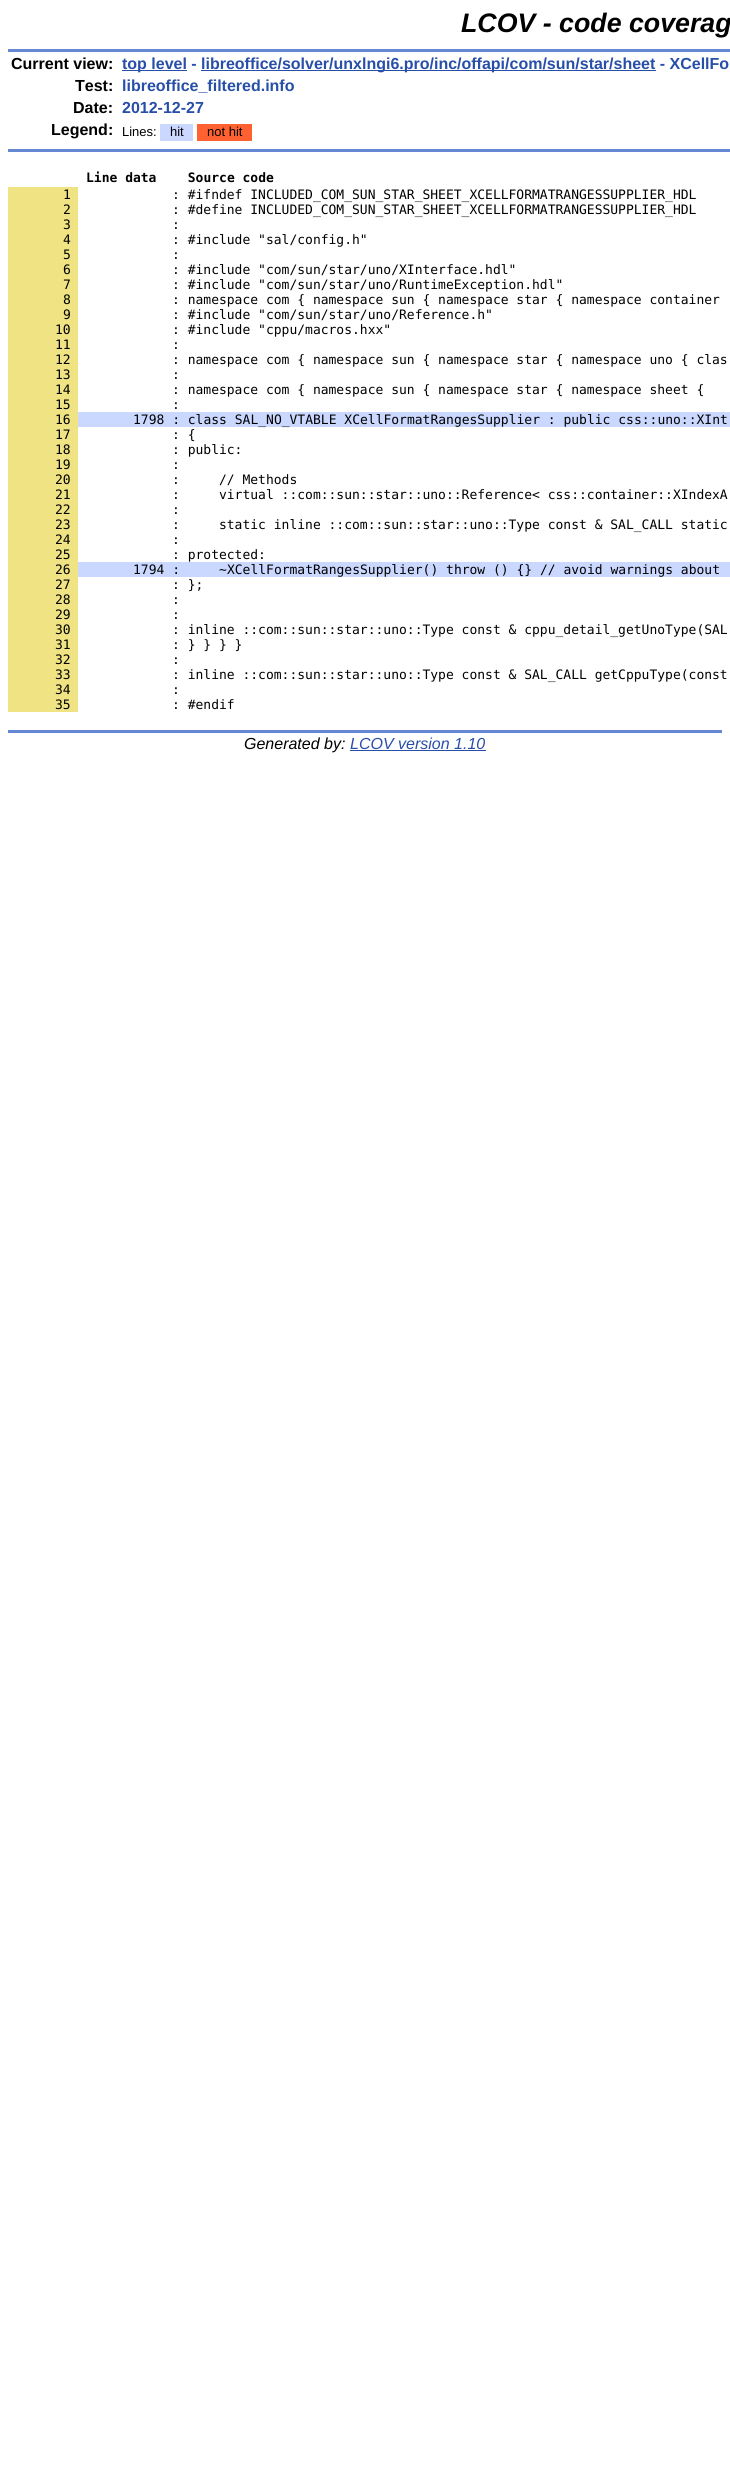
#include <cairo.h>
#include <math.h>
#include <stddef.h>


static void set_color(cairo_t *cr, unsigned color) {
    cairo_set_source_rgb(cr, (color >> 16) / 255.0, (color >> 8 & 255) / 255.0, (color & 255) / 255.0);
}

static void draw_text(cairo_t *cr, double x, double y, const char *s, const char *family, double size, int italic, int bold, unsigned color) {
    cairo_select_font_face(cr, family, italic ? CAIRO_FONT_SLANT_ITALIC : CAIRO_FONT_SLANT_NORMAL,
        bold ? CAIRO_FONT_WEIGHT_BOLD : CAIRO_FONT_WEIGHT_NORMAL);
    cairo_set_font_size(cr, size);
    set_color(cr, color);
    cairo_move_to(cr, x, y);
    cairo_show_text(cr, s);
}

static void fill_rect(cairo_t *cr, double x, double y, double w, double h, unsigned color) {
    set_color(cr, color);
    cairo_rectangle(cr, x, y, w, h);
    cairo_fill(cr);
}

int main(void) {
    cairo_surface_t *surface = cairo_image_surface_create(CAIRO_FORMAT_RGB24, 730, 2484);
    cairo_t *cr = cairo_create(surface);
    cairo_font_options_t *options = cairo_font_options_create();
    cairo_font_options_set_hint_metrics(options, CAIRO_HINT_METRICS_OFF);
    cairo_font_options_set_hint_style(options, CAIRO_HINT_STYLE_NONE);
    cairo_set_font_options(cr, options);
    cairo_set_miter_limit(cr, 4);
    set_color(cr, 0xFFFFFF);
    cairo_paint(cr);
    draw_text(cr, 461, 32, "LCOV - code coverag", "Liberation Sans", 26.75, 1, 1, 0x000000);
    fill_rect(cr, 8, 49, 722, 3, 0x6688D4);
    draw_text(cr, 11, 69, "Current view:", "Liberation Sans", 16, 0, 1, 0x000000);
    fill_rect(cr, 122, 70, 65, 1, 0x284FA8);
    draw_text(cr, 122, 69, "top level -", "Liberation Sans", 16, 0, 1, 0x284FA8);
    fill_rect(cr, 201, 70, 455, 1, 0x284FA8);
    draw_text(cr, 201, 69, "libreoffice/solver/unxlngi6.pro/inc/offapi/com/sun/star/sheet - XCellFo", "Liberation Sans", 16, 0, 1, 0x284FA8);
    draw_text(cr, 75, 91, "Test:", "Liberation Sans", 16, 0, 1, 0x000000);
    draw_text(cr, 122, 91, "libreoffice_filtered.info", "Liberation Sans", 16, 0, 1, 0x284FA8);
    draw_text(cr, 73, 113, "Date:", "Liberation Sans", 16, 0, 1, 0x000000);
    draw_text(cr, 122, 113, "2012-12-27", "Liberation Sans", 16, 0, 1, 0x284FA8);
    draw_text(cr, 51, 135, "Legend:", "Liberation Sans", 16, 0, 1, 0x000000);
    draw_text(cr, 122, 136, "Lines:", "Liberation Sans", 13, 0, 0, 0x000000);
    fill_rect(cr, 160, 124, 33, 17, 0xCAD7FE);
    draw_text(cr, 170, 136, "hit", "Liberation Sans", 13, 0, 0, 0x000000);
    fill_rect(cr, 197, 124, 55, 17, 0xFF6230);
    draw_text(cr, 207, 136, "not hit", "Liberation Sans", 13, 0, 0, 0x000000);
    fill_rect(cr, 8, 149, 722, 3, 0x6688D4);
    draw_text(cr, 86, 182, "Line data    Source code", "DejaVu Sans Mono", 13, 0, 1, 0x000000);
    fill_rect(cr, 8, 187, 70, 525, 0xEFE383);
    draw_text(cr, 63, 199, "1", "DejaVu Sans Mono", 13, 0, 0, 0x000000);
    draw_text(cr, 172, 199, ": #ifndef INCLUDED_COM_SUN_STAR_SHEET_XCELLFORMATRANGESSUPPLIER_HDL", "DejaVu Sans Mono", 13, 0, 0, 0x000000);
    draw_text(cr, 63, 214, "2", "DejaVu Sans Mono", 13, 0, 0, 0x000000);
    draw_text(cr, 172, 214, ": #define INCLUDED_COM_SUN_STAR_SHEET_XCELLFORMATRANGESSUPPLIER_HDL", "DejaVu Sans Mono", 13, 0, 0, 0x000000);
    draw_text(cr, 63, 229, "3", "DejaVu Sans Mono", 13, 0, 0, 0x000000);
    draw_text(cr, 172, 229, ":", "DejaVu Sans Mono", 13, 0, 0, 0x000000);
    draw_text(cr, 63, 244, "4", "DejaVu Sans Mono", 13, 0, 0, 0x000000);
    draw_text(cr, 172, 244, ": #include \"sal/config.h\"", "DejaVu Sans Mono", 13, 0, 0, 0x000000);
    draw_text(cr, 63, 259, "5", "DejaVu Sans Mono", 13, 0, 0, 0x000000);
    draw_text(cr, 172, 259, ":", "DejaVu Sans Mono", 13, 0, 0, 0x000000);
    draw_text(cr, 63, 274, "6", "DejaVu Sans Mono", 13, 0, 0, 0x000000);
    draw_text(cr, 172, 274, ": #include \"com/sun/star/uno/XInterface.hdl\"", "DejaVu Sans Mono", 13, 0, 0, 0x000000);
    draw_text(cr, 63, 289, "7", "DejaVu Sans Mono", 13, 0, 0, 0x000000);
    draw_text(cr, 172, 289, ": #include \"com/sun/star/uno/RuntimeException.hdl\"", "DejaVu Sans Mono", 13, 0, 0, 0x000000);
    draw_text(cr, 63, 304, "8", "DejaVu Sans Mono", 13, 0, 0, 0x000000);
    draw_text(cr, 172, 304, ": namespace com { namespace sun { namespace star { namespace container", "DejaVu Sans Mono", 13, 0, 0, 0x000000);
    draw_text(cr, 63, 319, "9", "DejaVu Sans Mono", 13, 0, 0, 0x000000);
    draw_text(cr, 172, 319, ": #include \"com/sun/star/uno/Reference.h\"", "DejaVu Sans Mono", 13, 0, 0, 0x000000);
    draw_text(cr, 55, 334, "10", "DejaVu Sans Mono", 13, 0, 0, 0x000000);
    draw_text(cr, 172, 334, ": #include \"cppu/macros.hxx\"", "DejaVu Sans Mono", 13, 0, 0, 0x000000);
    draw_text(cr, 55, 349, "11", "DejaVu Sans Mono", 13, 0, 0, 0x000000);
    draw_text(cr, 172, 349, ":", "DejaVu Sans Mono", 13, 0, 0, 0x000000);
    draw_text(cr, 55, 364, "12", "DejaVu Sans Mono", 13, 0, 0, 0x000000);
    draw_text(cr, 172, 364, ": namespace com { namespace sun { namespace star { namespace uno { clas", "DejaVu Sans Mono", 13, 0, 0, 0x000000);
    draw_text(cr, 55, 379, "13", "DejaVu Sans Mono", 13, 0, 0, 0x000000);
    draw_text(cr, 172, 379, ":", "DejaVu Sans Mono", 13, 0, 0, 0x000000);
    draw_text(cr, 55, 394, "14", "DejaVu Sans Mono", 13, 0, 0, 0x000000);
    draw_text(cr, 172, 394, ": namespace com { namespace sun { namespace star { namespace sheet {", "DejaVu Sans Mono", 13, 0, 0, 0x000000);
    draw_text(cr, 55, 409, "15", "DejaVu Sans Mono", 13, 0, 0, 0x000000);
    draw_text(cr, 172, 409, ":", "DejaVu Sans Mono", 13, 0, 0, 0x000000);
    draw_text(cr, 55, 424, "16", "DejaVu Sans Mono", 13, 0, 0, 0x000000);
    fill_rect(cr, 78, 412, 652, 15, 0xCAD7FE);
    draw_text(cr, 133, 424, "1798 : class SAL_NO_VTABLE XCellFormatRangesSupplier : public css::uno::XInt", "DejaVu Sans Mono", 13, 0, 0, 0x000000);
    draw_text(cr, 55, 439, "17", "DejaVu Sans Mono", 13, 0, 0, 0x000000);
    draw_text(cr, 172, 439, ": {", "DejaVu Sans Mono", 13, 0, 0, 0x000000);
    draw_text(cr, 55, 454, "18", "DejaVu Sans Mono", 13, 0, 0, 0x000000);
    draw_text(cr, 172, 454, ": public:", "DejaVu Sans Mono", 13, 0, 0, 0x000000);
    draw_text(cr, 55, 469, "19", "DejaVu Sans Mono", 13, 0, 0, 0x000000);
    draw_text(cr, 172, 469, ":", "DejaVu Sans Mono", 13, 0, 0, 0x000000);
    draw_text(cr, 55, 484, "20", "DejaVu Sans Mono", 13, 0, 0, 0x000000);
    draw_text(cr, 172, 484, ":     // Methods", "DejaVu Sans Mono", 13, 0, 0, 0x000000);
    draw_text(cr, 55, 499, "21", "DejaVu Sans Mono", 13, 0, 0, 0x000000);
    draw_text(cr, 172, 499, ":     virtual ::com::sun::star::uno::Reference< css::container::XIndexA", "DejaVu Sans Mono", 13, 0, 0, 0x000000);
    draw_text(cr, 55, 514, "22", "DejaVu Sans Mono", 13, 0, 0, 0x000000);
    draw_text(cr, 172, 514, ":", "DejaVu Sans Mono", 13, 0, 0, 0x000000);
    draw_text(cr, 55, 529, "23", "DejaVu Sans Mono", 13, 0, 0, 0x000000);
    draw_text(cr, 172, 529, ":     static inline ::com::sun::star::uno::Type const & SAL_CALL static", "DejaVu Sans Mono", 13, 0, 0, 0x000000);
    draw_text(cr, 55, 544, "24", "DejaVu Sans Mono", 13, 0, 0, 0x000000);
    draw_text(cr, 172, 544, ":", "DejaVu Sans Mono", 13, 0, 0, 0x000000);
    draw_text(cr, 55, 559, "25", "DejaVu Sans Mono", 13, 0, 0, 0x000000);
    draw_text(cr, 172, 559, ": protected:", "DejaVu Sans Mono", 13, 0, 0, 0x000000);
    draw_text(cr, 55, 574, "26", "DejaVu Sans Mono", 13, 0, 0, 0x000000);
    fill_rect(cr, 78, 562, 652, 15, 0xCAD7FE);
    draw_text(cr, 133, 574, "1794 :     ~XCellFormatRangesSupplier() throw () {} // avoid warnings about", "DejaVu Sans Mono", 13, 0, 0, 0x000000);
    draw_text(cr, 55, 589, "27", "DejaVu Sans Mono", 13, 0, 0, 0x000000);
    draw_text(cr, 172, 589, ": };", "DejaVu Sans Mono", 13, 0, 0, 0x000000);
    draw_text(cr, 55, 604, "28", "DejaVu Sans Mono", 13, 0, 0, 0x000000);
    draw_text(cr, 172, 604, ":", "DejaVu Sans Mono", 13, 0, 0, 0x000000);
    draw_text(cr, 55, 619, "29", "DejaVu Sans Mono", 13, 0, 0, 0x000000);
    draw_text(cr, 172, 619, ":", "DejaVu Sans Mono", 13, 0, 0, 0x000000);
    draw_text(cr, 55, 634, "30", "DejaVu Sans Mono", 13, 0, 0, 0x000000);
    draw_text(cr, 172, 634, ": inline ::com::sun::star::uno::Type const & cppu_detail_getUnoType(SAL", "DejaVu Sans Mono", 13, 0, 0, 0x000000);
    draw_text(cr, 55, 649, "31", "DejaVu Sans Mono", 13, 0, 0, 0x000000);
    draw_text(cr, 172, 649, ": } } } }", "DejaVu Sans Mono", 13, 0, 0, 0x000000);
    draw_text(cr, 55, 664, "32", "DejaVu Sans Mono", 13, 0, 0, 0x000000);
    draw_text(cr, 172, 664, ":", "DejaVu Sans Mono", 13, 0, 0, 0x000000);
    draw_text(cr, 55, 679, "33", "DejaVu Sans Mono", 13, 0, 0, 0x000000);
    draw_text(cr, 172, 679, ": inline ::com::sun::star::uno::Type const & SAL_CALL getCppuType(const", "DejaVu Sans Mono", 13, 0, 0, 0x000000);
    draw_text(cr, 55, 694, "34", "DejaVu Sans Mono", 13, 0, 0, 0x000000);
    draw_text(cr, 172, 694, ":", "DejaVu Sans Mono", 13, 0, 0, 0x000000);
    draw_text(cr, 55, 709, "35", "DejaVu Sans Mono", 13, 0, 0, 0x000000);
    draw_text(cr, 172, 709, ": #endif", "DejaVu Sans Mono", 13, 0, 0, 0x000000);
    fill_rect(cr, 8, 730, 714, 3, 0x6688D4);
    draw_text(cr, 244, 749, "Generated by:", "Liberation Sans", 16, 1, 0, 0x000000);
    draw_text(cr, 350, 749, "LCOV version 1.10", "Liberation Sans", 16, 1, 0, 0x284FA8);
    fill_rect(cr, 350, 750, 136, 1, 0x284FA8);
    cairo_surface_write_to_png(surface, "output.png");
    cairo_font_options_destroy(options);
    cairo_destroy(cr);
    cairo_surface_destroy(surface);
    return 0;
}
